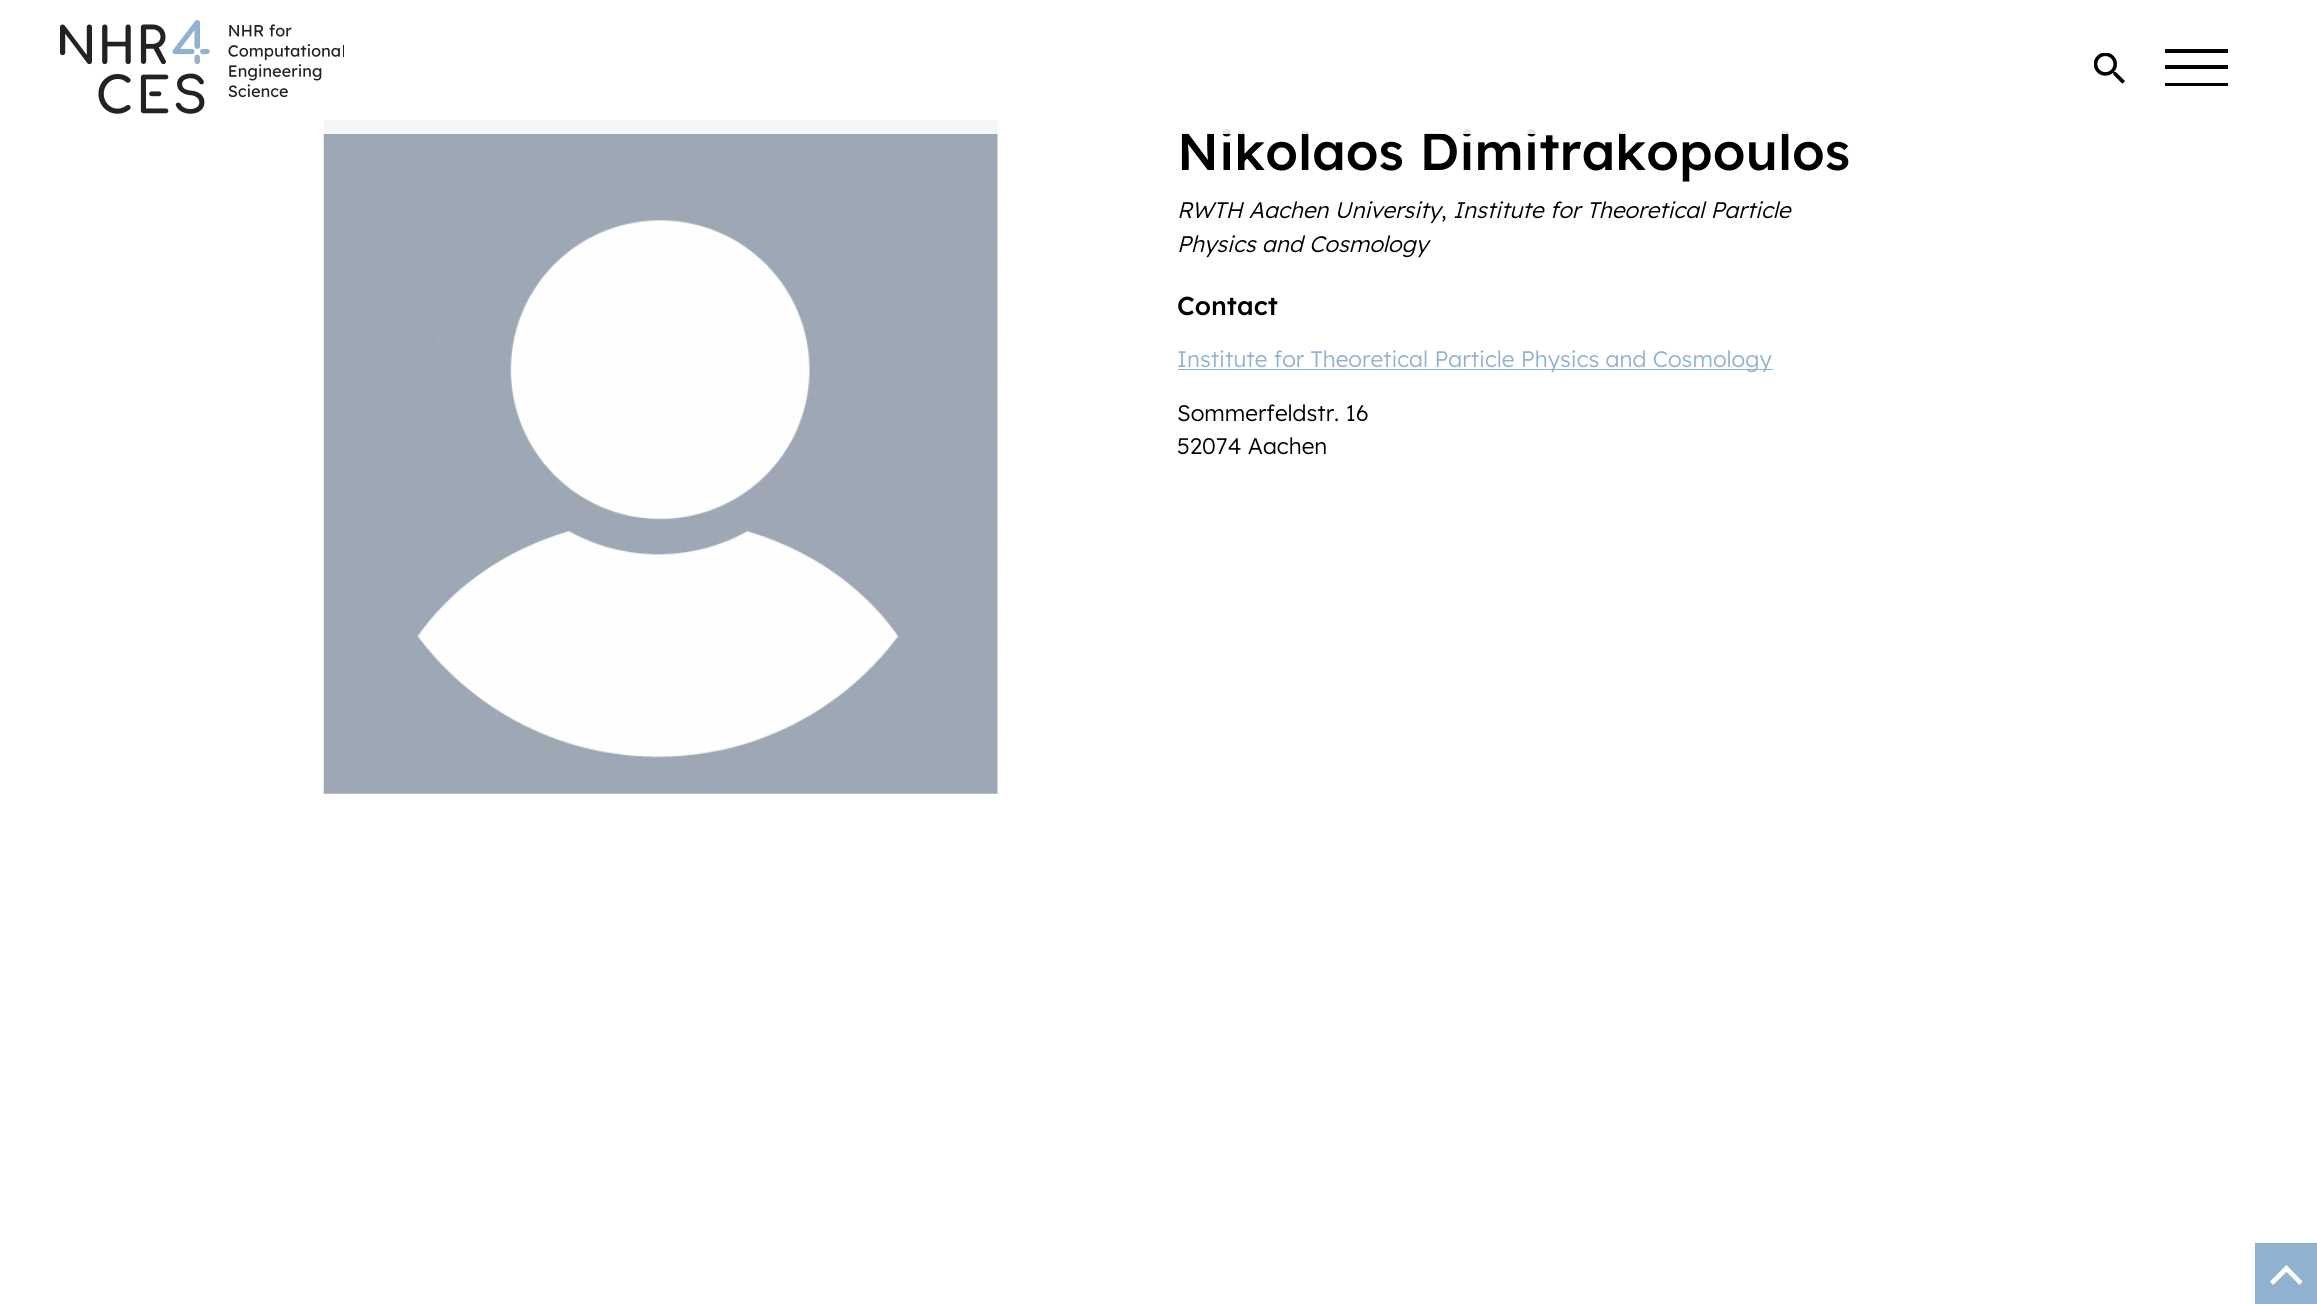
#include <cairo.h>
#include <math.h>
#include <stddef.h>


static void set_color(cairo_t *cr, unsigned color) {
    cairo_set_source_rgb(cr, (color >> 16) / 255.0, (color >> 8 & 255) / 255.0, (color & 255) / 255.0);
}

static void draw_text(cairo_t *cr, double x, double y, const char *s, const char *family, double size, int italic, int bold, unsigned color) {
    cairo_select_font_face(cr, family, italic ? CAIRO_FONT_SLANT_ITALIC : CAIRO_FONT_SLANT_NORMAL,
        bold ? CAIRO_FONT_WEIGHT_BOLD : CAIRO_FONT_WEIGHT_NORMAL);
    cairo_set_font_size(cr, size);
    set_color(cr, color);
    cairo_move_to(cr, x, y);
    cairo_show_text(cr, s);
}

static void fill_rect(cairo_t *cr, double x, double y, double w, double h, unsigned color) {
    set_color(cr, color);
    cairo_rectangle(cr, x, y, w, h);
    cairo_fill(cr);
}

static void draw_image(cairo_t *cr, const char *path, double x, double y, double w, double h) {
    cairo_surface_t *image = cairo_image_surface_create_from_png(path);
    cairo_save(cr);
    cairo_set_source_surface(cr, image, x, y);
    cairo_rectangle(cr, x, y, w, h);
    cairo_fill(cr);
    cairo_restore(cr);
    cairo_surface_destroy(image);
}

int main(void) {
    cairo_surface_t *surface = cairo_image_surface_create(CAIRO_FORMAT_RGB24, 2317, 1304);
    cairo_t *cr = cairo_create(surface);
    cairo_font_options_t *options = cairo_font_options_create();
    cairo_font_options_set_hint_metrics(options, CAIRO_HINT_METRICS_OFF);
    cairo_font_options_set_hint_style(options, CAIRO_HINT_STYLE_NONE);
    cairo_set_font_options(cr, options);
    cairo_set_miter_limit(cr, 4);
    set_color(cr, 0xFFFFFF);
    cairo_paint(cr);
    draw_image(cr, "assets/img3.png", 323, 120, 675, 674);
    draw_text(cr, 1177, 170, "Nikolaos Dimitrakopoulos", "Lexend Medium", 52.5, 0, 0, 0x000000);
    cairo_set_source_rgba(cr, 1, 1, 1, 0.9);
    cairo_rectangle(cr, 323, 120, 1466, 14);
    cairo_fill(cr);
    draw_image(cr, "assets/img1.png", 60, 20, 284, 94);
    draw_image(cr, "assets/img2.png", 2094, 53, 31, 31);
    fill_rect(cr, 2165, 49, 63, 4, 0x000000);
    fill_rect(cr, 2165, 65, 63, 4, 0x000000);
    fill_rect(cr, 2165, 83, 63, 3, 0x000000);
    draw_text(cr, 1177, 218, "RWTH Aachen University", "Lexend Light", 22.5, 1, 0, 0x000000);
    draw_text(cr, 1453, 218, "Institute for Theoretical Particle", "Lexend Light", 22.5, 1, 0, 0x000000);
    draw_text(cr, 1441, 218, ",", "Lexend Light", 22.5, 0, 0, 0x000000);
    draw_text(cr, 1177, 252, "Physics and Cosmology", "Lexend Light", 22.5, 1, 0, 0x000000);
    draw_text(cr, 1177, 315, "Contact", "Lexend Medium", 26, 0, 0, 0x000000);
    fill_rect(cr, 1178, 369, 595, 1, 0x90B1D0);
    draw_text(cr, 1177, 367, "Institute for Theoretical Particle Physics and Cosmology", "Lexend Light", 22.5, 0, 0, 0x90B1D0);
    draw_text(cr, 1177, 421, "Sommerfeldstr. 16", "Lexend Light", 22.5, 0, 0, 0x000000);
    draw_text(cr, 1177, 454, "52074 Aachen", "Lexend Light", 22.5, 0, 0, 0x000000);
    fill_rect(cr, 2255, 1243, 62, 61, 0x90B1D0);
    set_color(cr, 0xFFFFFF);
    cairo_new_path(cr);
    cairo_move_to(cr, 2270, 1281.5);
    cairo_line_to(cr, 2273, 1285);
    cairo_line_to(cr, 2286.5, 1272);
    cairo_line_to(cr, 2299.5, 1285);
    cairo_line_to(cr, 2302.5, 1281.5);
    cairo_line_to(cr, 2286.5, 1265);
    cairo_close_path(cr);
    cairo_fill(cr);
    cairo_surface_write_to_png(surface, "output.png");
    cairo_font_options_destroy(options);
    cairo_destroy(cr);
    cairo_surface_destroy(surface);
    return 0;
}
